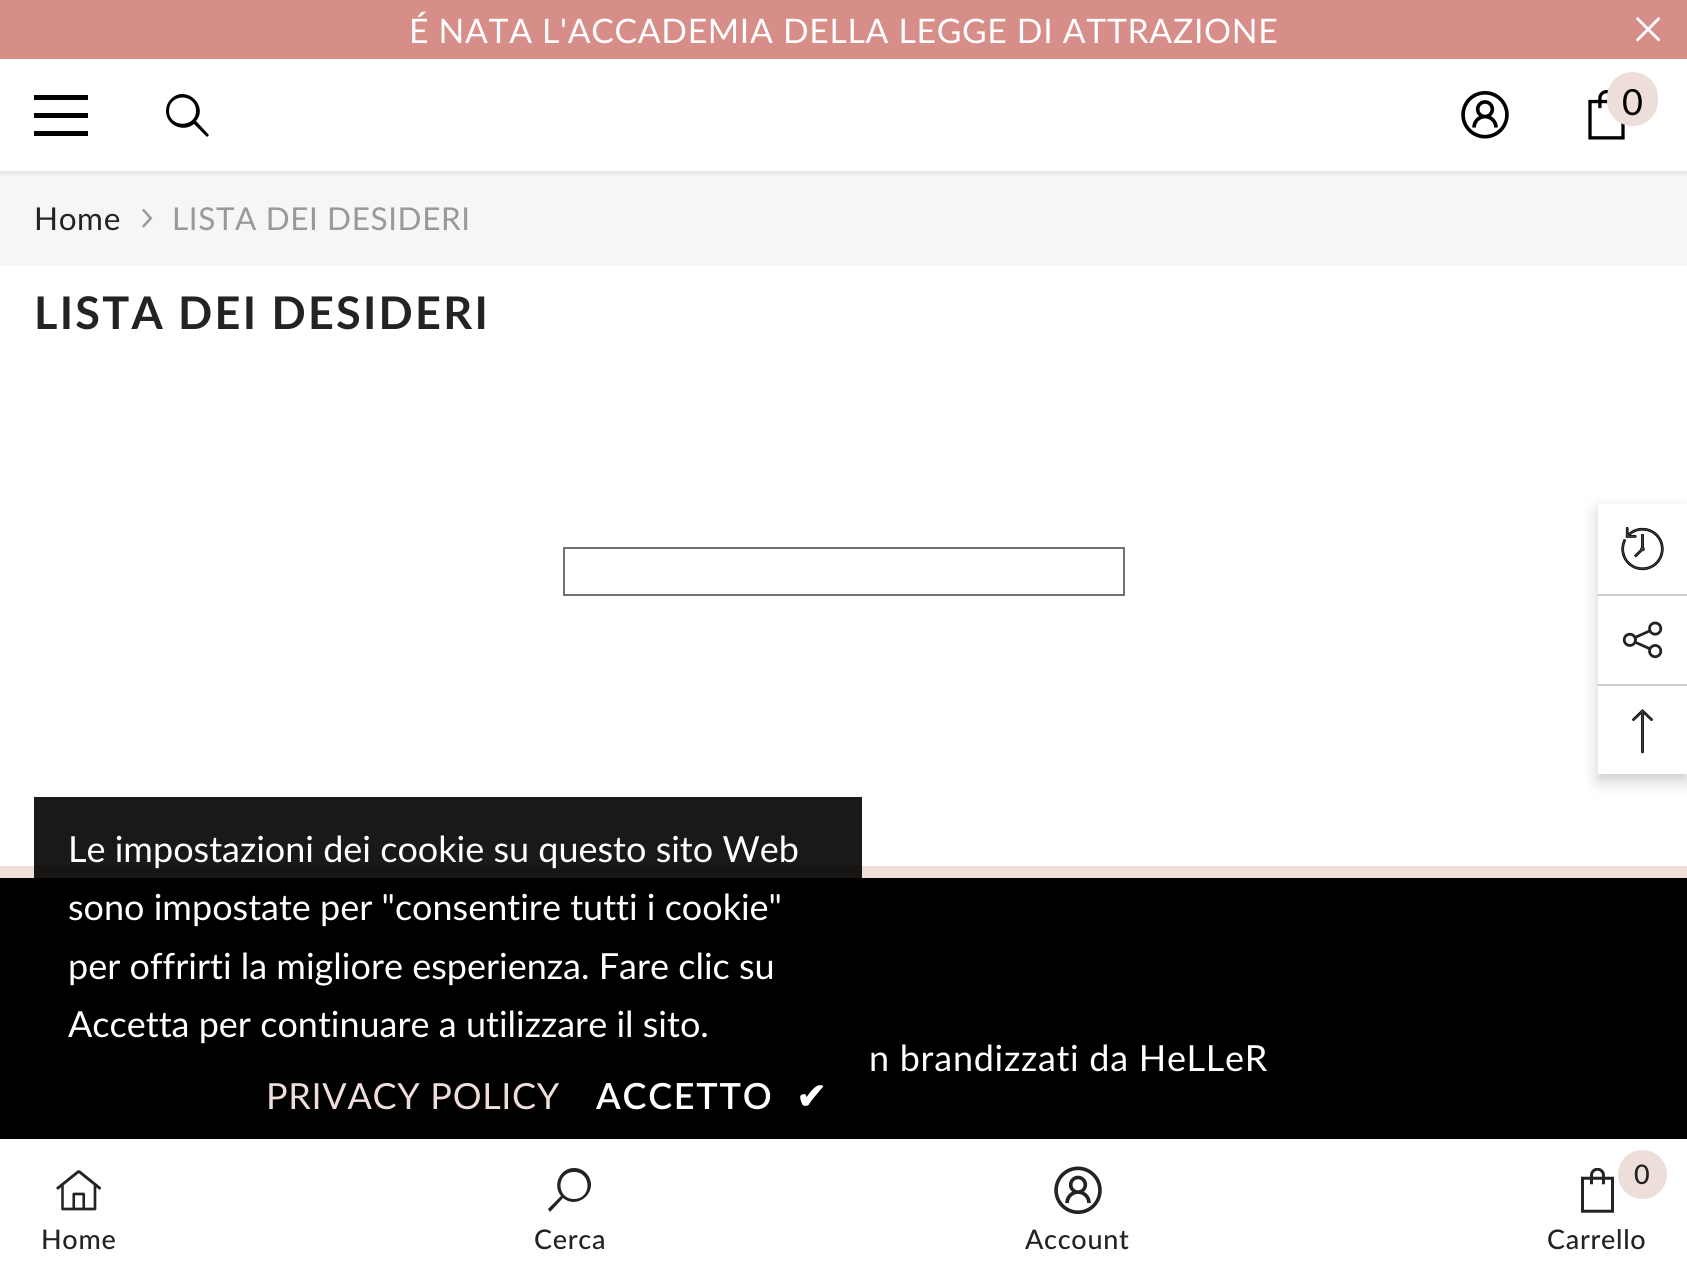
#include <cairo.h>
#include <math.h>
#include <stddef.h>


static void set_color(cairo_t *cr, unsigned color) {
    cairo_set_source_rgb(cr, (color >> 16) / 255.0, (color >> 8 & 255) / 255.0, (color & 255) / 255.0);
}

static void draw_text(cairo_t *cr, double x, double y, const char *s, const char *family, double size, int italic, int bold, unsigned color) {
    cairo_select_font_face(cr, family, italic ? CAIRO_FONT_SLANT_ITALIC : CAIRO_FONT_SLANT_NORMAL,
        bold ? CAIRO_FONT_WEIGHT_BOLD : CAIRO_FONT_WEIGHT_NORMAL);
    cairo_set_font_size(cr, size);
    set_color(cr, color);
    cairo_move_to(cr, x, y);
    cairo_show_text(cr, s);
}

static void draw_spaced(cairo_t *cr, double x, double y, const char *s, double letter, double word) {
    cairo_move_to(cr, x, y);
    while (*s) {
        char ch[5] = {0};
        int n = 0;
        do ch[n++] = *s++; while ((*s & 0xC0) == 0x80);
        cairo_show_text(cr, ch);
        cairo_rel_move_to(cr, letter + word * (*ch == ' '), 0);
    }
}

static void fill_rect(cairo_t *cr, double x, double y, double w, double h, unsigned color) {
    set_color(cr, color);
    cairo_rectangle(cr, x, y, w, h);
    cairo_fill(cr);
}

static void rounded_rect(cairo_t *cr, double x, double y, double w, double h, double r) {
    cairo_new_sub_path(cr);
    cairo_arc(cr, x + w - r, y + h - r, r, 0, M_PI / 2);
    cairo_arc(cr, x + r, y + h - r, r, M_PI / 2, M_PI);
    cairo_arc(cr, x + r, y + r, r, M_PI, 1.5 * M_PI);
    cairo_arc(cr, x + w - r, y + r, r, 1.5 * M_PI, 2 * M_PI);
    cairo_close_path(cr);
}

static void draw_shadow(cairo_t *cr, double x, double y, double w, double h, double r, double blur, double alpha) {
    cairo_push_group_with_content(cr, CAIRO_CONTENT_ALPHA);
    cairo_set_operator(cr, CAIRO_OPERATOR_SOURCE);
    for (int i = 15; i >= -15 && fmin(w, h) + blur * i / 3 > 0; i -= 2) {
        double e = blur * i / 6;
        cairo_set_source_rgba(cr, 0, 0, 0, alpha * erfc((i - 1) / 8.5) / 2);
        rounded_rect(cr, x - e, y - e, w + 2 * e, h + 2 * e, fmax(0, fmin(r + e + blur * .6, fmin(w, h) / 2 + e)));
        cairo_fill(cr);
    }
    cairo_pattern_t *soft = cairo_pop_group(cr);
    cairo_mask(cr, soft);
    cairo_pattern_destroy(soft);
}

static void draw_image(cairo_t *cr, const char *path, double x, double y, double w, double h) {
    cairo_surface_t *image = cairo_image_surface_create_from_png(path);
    cairo_save(cr);
    cairo_set_source_surface(cr, image, x, y);
    cairo_rectangle(cr, x, y, w, h);
    cairo_fill(cr);
    cairo_restore(cr);
    cairo_surface_destroy(image);
}

int main(void) {
    cairo_surface_t *surface = cairo_image_surface_create(CAIRO_FORMAT_RGB24, 1687, 1277);
    cairo_t *cr = cairo_create(surface);
    cairo_font_options_t *options = cairo_font_options_create();
    cairo_font_options_set_hint_metrics(options, CAIRO_HINT_METRICS_OFF);
    cairo_font_options_set_hint_style(options, CAIRO_HINT_STYLE_NONE);
    cairo_set_font_options(cr, options);
    cairo_set_miter_limit(cr, 4);
    set_color(cr, 0xFFFFFF);
    cairo_paint(cr);
    fill_rect(cr, 0, 0, 1687, 59, 0xD78E89);
    cairo_select_font_face(cr, "Lato", CAIRO_FONT_SLANT_NORMAL, CAIRO_FONT_WEIGHT_NORMAL);
    cairo_set_font_size(cr, 33.75);
    set_color(cr, 0xFFFFFF);
    draw_spaced(cr, 409, 43, "É NATA L'ACCADEMIA DELLA LEGGE DI ATTRAZIONE", 0.7, 0);
    draw_image(cr, "assets/img1.png", 1636, 17, 24, 25);
    fill_rect(cr, 0, 171, 1687, 95, 0xF6F6F6);
    cairo_save(cr);
    cairo_rectangle(cr, 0, 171, 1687, 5);
    cairo_clip(cr);
    set_color(cr, 0x000000);
    draw_shadow(cr, 0, 61, 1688, 112, 0, 3.5, 0.1);
    cairo_restore(cr);
    fill_rect(cr, 34, 113, 54, 5, 0x000000);
    fill_rect(cr, 34, 95, 54, 5, 0x000000);
    fill_rect(cr, 34, 131, 54, 5, 0x000000);
    cairo_new_path(cr);
    cairo_move_to(cr, 166, 111);
    cairo_curve_to(cr, 166, 125, 183, 133, 194, 124);
    cairo_line_to(cr, 207, 137);
    cairo_line_to(cr, 209, 135);
    cairo_line_to(cr, 196, 121);
    cairo_curve_to(cr, 209, 106, 186, 84, 171, 99);
    cairo_curve_to(cr, 168, 102, 166, 106, 166, 111);
    cairo_close_path(cr);
    cairo_move_to(cr, 169, 111);
    cairo_curve_to(cr, 169, 93, 196, 93, 196, 111);
    cairo_curve_to(cr, 196, 128, 169, 128, 169, 111);
    cairo_close_path(cr);
    cairo_fill(cr);
    draw_image(cr, "assets/img2.png", 1461, 91, 48, 48);
    draw_image(cr, "assets/img3.png", 1588, 90, 37, 50);
    set_color(cr, 0xEDDED9);
    rounded_rect(cr, 1607, 72, 51, 54, 25.5);
    cairo_fill(cr);
    cairo_set_font_size(cr, 36);
    set_color(cr, 0x000000);
    draw_spaced(cr, 1622, 115, "0", 0.7, 0);
    cairo_set_font_size(cr, 31.5);
    set_color(cr, 0x232323);
    draw_spaced(cr, 34, 230, "Home", 0.6, 0);
    draw_image(cr, "assets/img4.png", 142, 208, 11, 20);
    set_color(cr, 0x999999);
    draw_spaced(cr, 172, 230, "LISTA DEI DESIDERI", 0.6, 0);
    cairo_select_font_face(cr, "Lato", CAIRO_FONT_SLANT_NORMAL, CAIRO_FONT_WEIGHT_BOLD);
    cairo_set_font_size(cr, 45);
    set_color(cr, 0x232323);
    draw_spaced(cr, 34, 329, "LISTA DEI DESIDERI", 2.25, 0);
    cairo_rectangle(cr, 564, 548, 560, 47);
    set_color(cr, 0x727272);
    cairo_stroke(cr);
    fill_rect(cr, 0, 878, 1687, 261, 0x000000);
    fill_rect(cr, 0, 866, 1687, 12, 0xEDDED9);
    cairo_select_font_face(cr, "Lato", CAIRO_FONT_SLANT_NORMAL, CAIRO_FONT_WEIGHT_NORMAL);
    cairo_set_font_size(cr, 36);
    set_color(cr, 0xFFFFFF);
    draw_spaced(cr, 869, 1071, "n brandizzati da HeLLeR", 0.7, 0);
    draw_image(cr, "assets/img5.png", 56, 1170, 45, 41);
    cairo_select_font_face(cr, "Lato Medium", CAIRO_FONT_SLANT_NORMAL, CAIRO_FONT_WEIGHT_NORMAL);
    cairo_set_font_size(cr, 27);
    set_color(cr, 0x232323);
    draw_spaced(cr, 41, 1249, "Home", 0.7, 0);
    cairo_new_path(cr);
    cairo_move_to(cr, 574, 1168);
    cairo_curve_to(cr, 560, 1168, 552, 1185, 561, 1196);
    cairo_line_to(cr, 548, 1209);
    cairo_line_to(cr, 550, 1212);
    cairo_line_to(cr, 563, 1198);
    cairo_curve_to(cr, 579, 1211, 601, 1189, 586, 1173);
    cairo_curve_to(cr, 583, 1170, 579, 1168, 574, 1168);
    cairo_close_path(cr);
    cairo_move_to(cr, 574, 1172);
    cairo_curve_to(cr, 592, 1172, 592, 1199, 574, 1199);
    cairo_curve_to(cr, 556, 1199, 556, 1172, 574, 1172);
    cairo_close_path(cr);
    cairo_fill(cr);
    draw_spaced(cr, 534, 1249, "Cerca", 0.7, 0);
    draw_image(cr, "assets/img6.png", 1054, 1166, 48, 48);
    draw_spaced(cr, 1025, 1249, "Account", 0.7, 0);
    draw_image(cr, "assets/img7.png", 1581, 1168, 33, 45);
    set_color(cr, 0xEDDED9);
    cairo_arc(cr, 1642.5, 1174.5, 24.5, 0, 2 * M_PI);
    cairo_fill(cr);
    set_color(cr, 0x232323);
    draw_spaced(cr, 1634, 1184, "0", 0.7, 0);
    draw_spaced(cr, 1547, 1249, "Carrello", 0.7, 0);
    cairo_save(cr);
    cairo_set_fill_rule(cr, CAIRO_FILL_RULE_EVEN_ODD);
    cairo_new_path(cr);
    cairo_move_to(cr, 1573, 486);
    cairo_line_to(cr, 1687, 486);
    cairo_line_to(cr, 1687, 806);
    cairo_line_to(cr, 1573, 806);
    cairo_close_path(cr);
    cairo_move_to(cr, 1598, 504);
    cairo_line_to(cr, 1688, 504);
    cairo_line_to(cr, 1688, 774);
    cairo_line_to(cr, 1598, 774);
    cairo_close_path(cr);
    cairo_clip(cr);
    set_color(cr, 0x000000);
    draw_shadow(cr, 1598, 511, 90, 270, 0, 8, 0.2);
    cairo_restore(cr);
    draw_image(cr, "assets/img8.png", 1621, 527, 43, 44);
    fill_rect(cr, 1598, 594, 89, 2, 0xCCCCCC);
    draw_image(cr, "assets/img9.png", 1622, 621, 41, 38);
    fill_rect(cr, 1598, 684, 89, 2, 0xCCCCCC);
    draw_image(cr, "assets/img10.png", 1632, 709, 21, 45);
    cairo_set_source_rgba(cr, 0, 0, 0, 0.9);
    cairo_rectangle(cr, 34, 797, 828, 81);
    cairo_fill(cr);
    draw_text(cr, 68, 862, "Le impostazioni dei cookie su questo sito Web", "Lato", 36, 0, 0, 0xFFFFFF);
    draw_text(cr, 68, 920, "sono impostate per \"consentire tutti i cookie\"", "Lato", 36, 0, 0, 0xFFFFFF);
    draw_text(cr, 68, 979, "per offrirti la migliore esperienza. Fare clic su", "Lato", 36, 0, 0, 0xFFFFFF);
    draw_text(cr, 68, 1037, "Accetta per continuare a utilizzare il sito.", "Lato", 36, 0, 0, 0xFFFFFF);
    set_color(cr, 0xEDDED9);
    draw_spaced(cr, 266, 1109, "PRIVACY POLICY", 0.7, 0);
    cairo_select_font_face(cr, "Lato SemiBold", CAIRO_FONT_SLANT_NORMAL, CAIRO_FONT_WEIGHT_NORMAL);
    set_color(cr, 0xFFFFFF);
    draw_spaced(cr, 596, 1109, "ACCETTO", 1.75, 0);
    cairo_select_font_face(cr, "DejaVu Sans", CAIRO_FONT_SLANT_NORMAL, CAIRO_FONT_WEIGHT_BOLD);
    draw_spaced(cr, 796, 1109, "✔", 1.75, 0);
    cairo_surface_write_to_png(surface, "output.png");
    cairo_font_options_destroy(options);
    cairo_destroy(cr);
    cairo_surface_destroy(surface);
    return 0;
}
